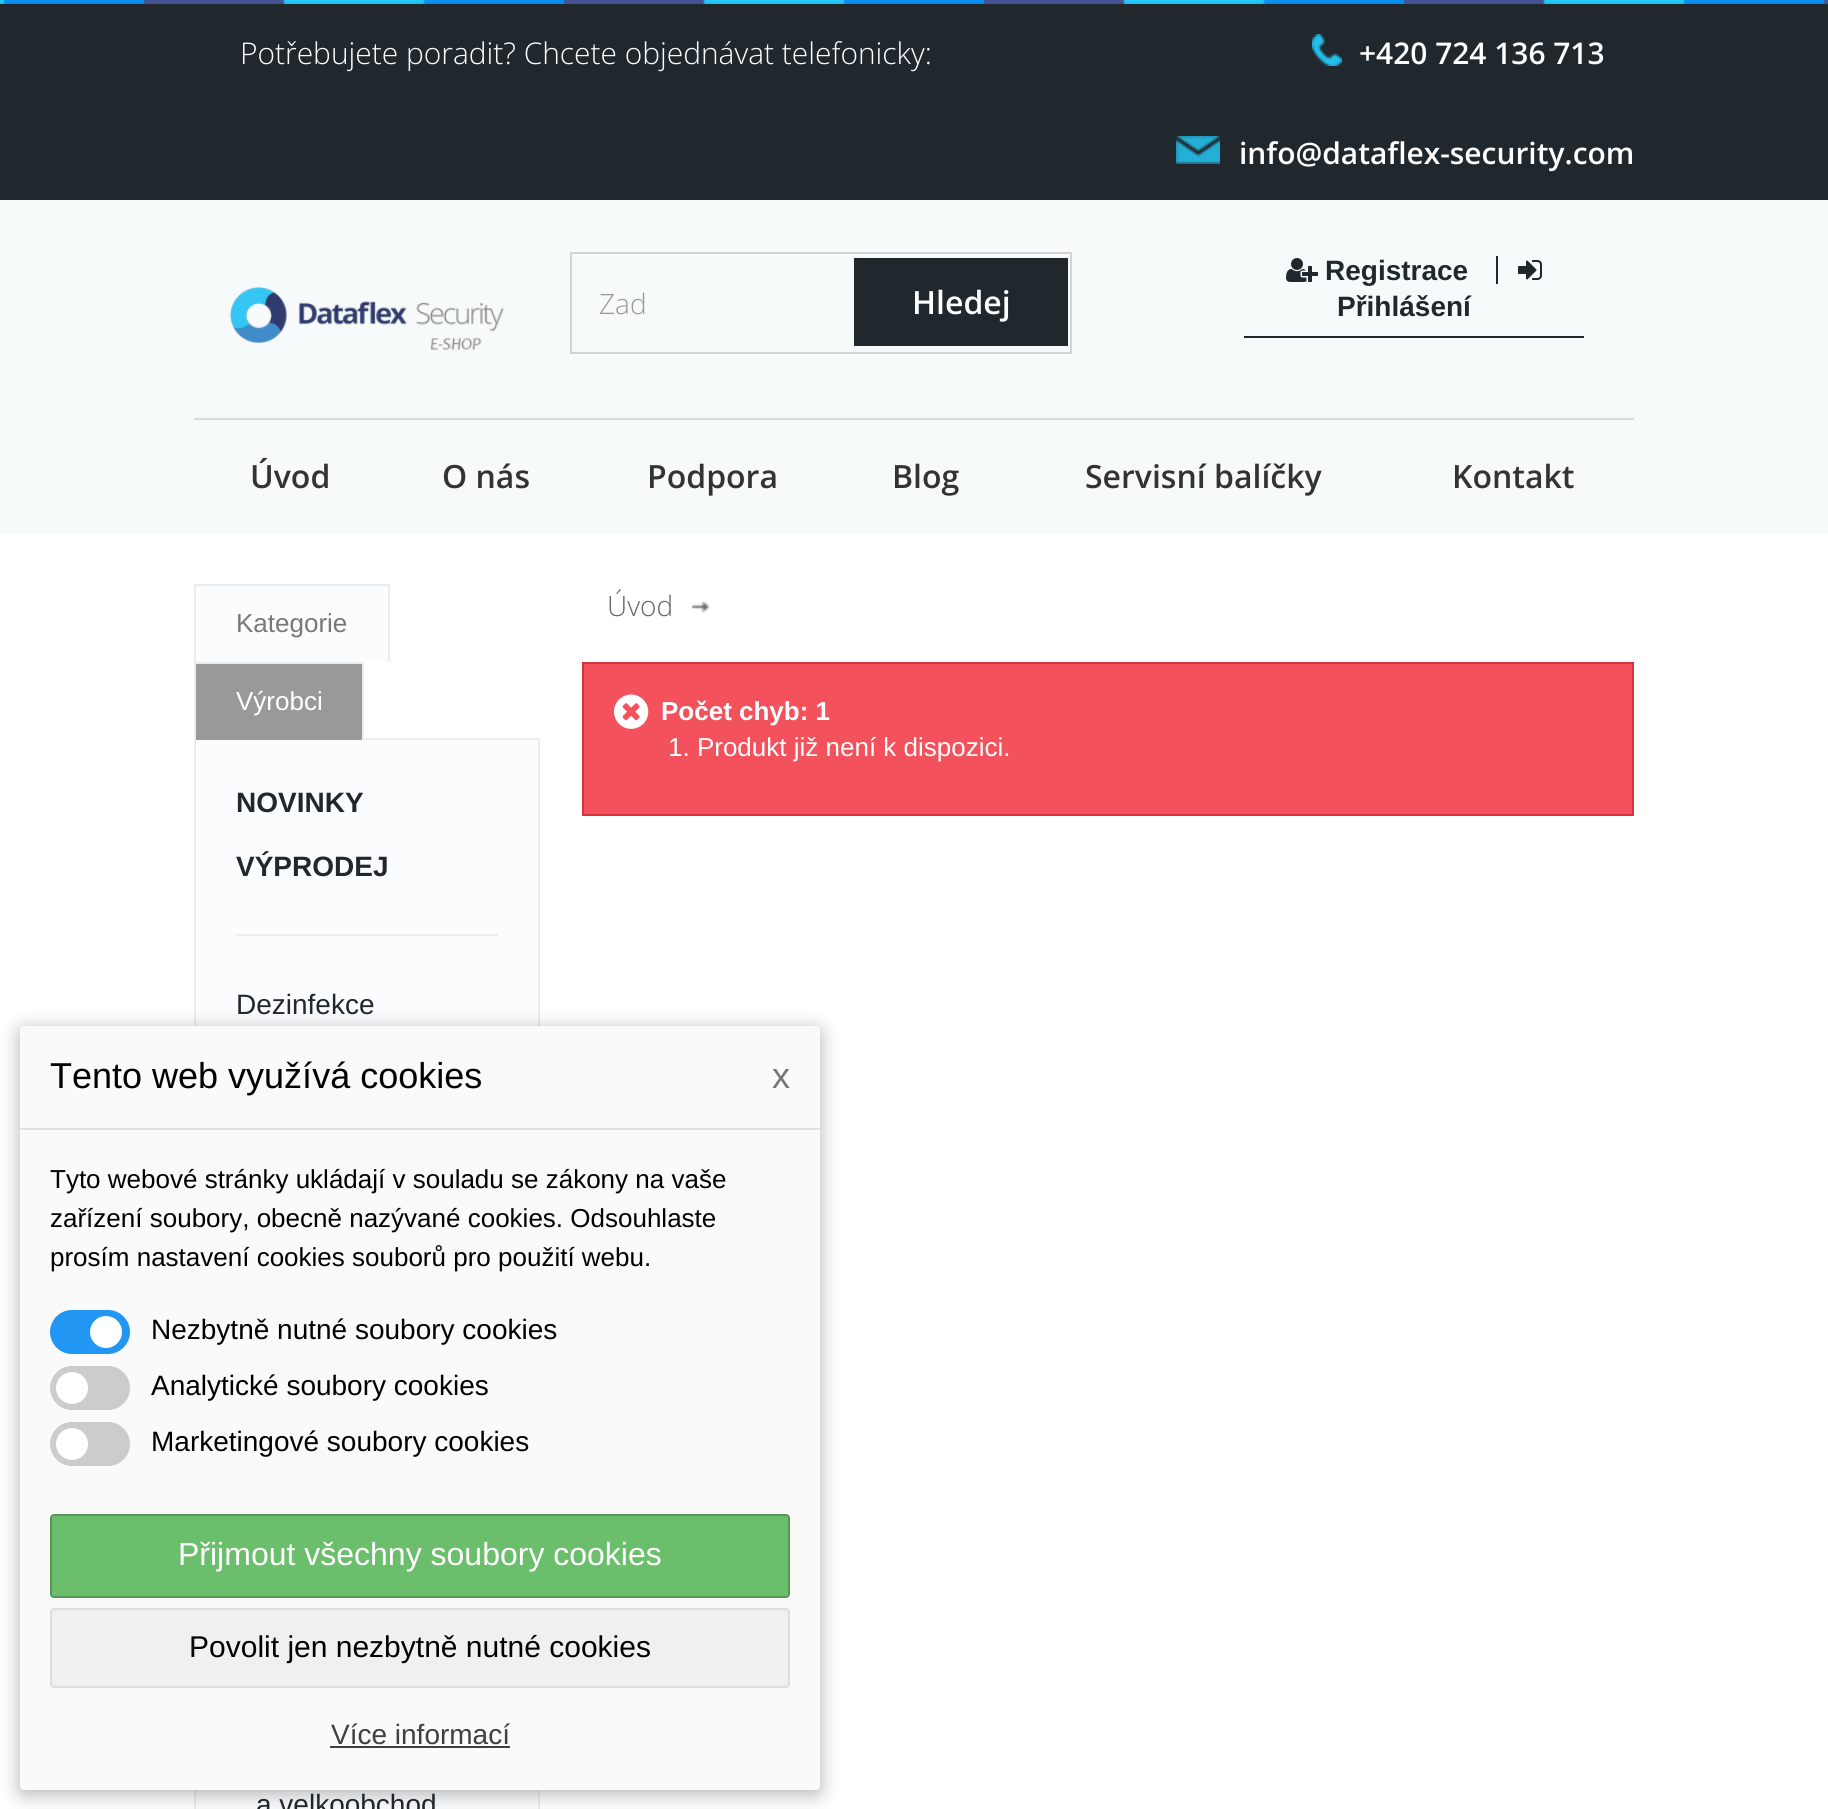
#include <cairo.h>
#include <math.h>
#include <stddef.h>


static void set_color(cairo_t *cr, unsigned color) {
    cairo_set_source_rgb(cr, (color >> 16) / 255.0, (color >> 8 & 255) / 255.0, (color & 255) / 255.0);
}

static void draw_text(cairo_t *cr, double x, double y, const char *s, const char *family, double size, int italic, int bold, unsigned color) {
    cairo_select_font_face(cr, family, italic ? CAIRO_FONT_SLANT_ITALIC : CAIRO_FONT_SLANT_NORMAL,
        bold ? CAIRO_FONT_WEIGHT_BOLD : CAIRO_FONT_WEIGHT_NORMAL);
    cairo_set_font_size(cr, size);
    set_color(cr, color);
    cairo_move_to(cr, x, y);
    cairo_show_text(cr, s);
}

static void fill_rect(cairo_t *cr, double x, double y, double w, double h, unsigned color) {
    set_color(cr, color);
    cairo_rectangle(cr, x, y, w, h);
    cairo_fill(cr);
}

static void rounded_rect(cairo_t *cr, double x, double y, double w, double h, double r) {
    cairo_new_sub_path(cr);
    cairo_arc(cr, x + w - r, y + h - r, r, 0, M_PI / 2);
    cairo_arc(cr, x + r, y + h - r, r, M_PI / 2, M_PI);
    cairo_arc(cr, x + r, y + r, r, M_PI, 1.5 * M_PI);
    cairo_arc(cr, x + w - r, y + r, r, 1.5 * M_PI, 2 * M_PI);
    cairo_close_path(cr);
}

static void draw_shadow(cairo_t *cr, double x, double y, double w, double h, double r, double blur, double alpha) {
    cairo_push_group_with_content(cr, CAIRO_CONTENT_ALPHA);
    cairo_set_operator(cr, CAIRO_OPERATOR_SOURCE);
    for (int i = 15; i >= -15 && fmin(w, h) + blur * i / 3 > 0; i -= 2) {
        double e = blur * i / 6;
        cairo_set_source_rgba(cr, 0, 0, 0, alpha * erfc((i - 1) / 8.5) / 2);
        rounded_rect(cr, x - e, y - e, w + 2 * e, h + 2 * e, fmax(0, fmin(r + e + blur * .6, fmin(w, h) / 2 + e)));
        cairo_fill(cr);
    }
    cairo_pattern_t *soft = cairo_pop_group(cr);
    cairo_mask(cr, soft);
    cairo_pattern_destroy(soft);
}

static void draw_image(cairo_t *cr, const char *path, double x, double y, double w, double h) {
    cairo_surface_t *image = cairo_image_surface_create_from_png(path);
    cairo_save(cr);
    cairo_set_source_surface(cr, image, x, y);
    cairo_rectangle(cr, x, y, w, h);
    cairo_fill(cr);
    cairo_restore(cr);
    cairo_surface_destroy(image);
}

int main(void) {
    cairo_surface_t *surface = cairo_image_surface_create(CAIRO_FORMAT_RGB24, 1828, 1809);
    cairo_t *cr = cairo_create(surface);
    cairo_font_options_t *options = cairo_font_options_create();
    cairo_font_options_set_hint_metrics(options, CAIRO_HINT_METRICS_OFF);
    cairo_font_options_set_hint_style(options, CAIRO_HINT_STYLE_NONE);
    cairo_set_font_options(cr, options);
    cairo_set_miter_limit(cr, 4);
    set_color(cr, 0xFFFFFF);
    cairo_paint(cr);
    fill_rect(cr, 0, 200, 1828, 334, 0xF6FAFB);
    fill_rect(cr, 0, 1, 1828, 199, 0x20282E);
    draw_image(cr, "assets/img1.png", 0, 0, 1828, 4);
    draw_text(cr, 240, 64, "Potřebujete poradit? Chcete objednávat telefonicky:", "Open Sans Light", 29.9, 0, 0, 0xFFFFFF);
    draw_image(cr, "assets/img2.png", 1312, 34, 30, 32);
    draw_text(cr, 1359, 64, "+420 724 136 713", "Open Sans SemiBold", 29.9, 0, 0, 0xFFFFFF);
    draw_image(cr, "assets/img3.png", 1176, 136, 44, 28);
    draw_text(cr, 1239, 164, "info@dataflex-security.com", "Open Sans SemiBold", 29.9, 0, 0, 0xFFFFFF);
    draw_image(cr, "assets/img4.png", 229, 286, 275, 64);
    cairo_rectangle(cr, 571, 253, 500, 100);
    set_color(cr, 0xD2D3D5);
    cairo_stroke(cr);
    draw_text(cr, 599, 314, "Zad", "Open Sans Light", 28, 0, 0, 0x999999);
    fill_rect(cr, 854, 258, 214, 88, 0x20282E);
    draw_text(cr, 912, 314, "Hledej", "Open Sans SemiBold", 32, 0, 0, 0xFFFFFF);
    fill_rect(cr, 1244, 336, 340, 2, 0x20282E);
    draw_image(cr, "assets/img5.png", 1286, 258, 32, 24);
    draw_text(cr, 1325, 280, "Registrace", "Liberation Sans", 28, 0, 1, 0x20282E);
    fill_rect(cr, 1496, 256, 2, 28, 0x20282E);
    draw_image(cr, "assets/img6.png", 1518, 260, 24, 20);
    draw_text(cr, 1337, 316, "Přihlášení", "Liberation Sans", 28, 0, 1, 0x20282E);
    fill_rect(cr, 194, 418, 1440, 2, 0xD8DADB);
    draw_text(cr, 250, 488, "Úvod", "Open Sans SemiBold", 32, 0, 0, 0x333333);
    draw_text(cr, 442, 488, "O nás", "Open Sans SemiBold", 32, 0, 0, 0x333333);
    draw_text(cr, 647, 488, "Podpora", "Open Sans SemiBold", 32, 0, 0, 0x333333);
    draw_text(cr, 892, 488, "Blog", "Open Sans SemiBold", 32, 0, 0, 0x333333);
    draw_text(cr, 1085, 488, "Servisní balíčky", "Open Sans SemiBold", 32, 0, 0, 0x333333);
    draw_text(cr, 1452, 488, "Kontakt", "Open Sans SemiBold", 32, 0, 0, 0x333333);
    fill_rect(cr, 196, 586, 192, 76, 0xFAFCFD);
    fill_rect(cr, 194, 584, 196, 2, 0xECEDEE);
    fill_rect(cr, 388, 584, 2, 78, 0xECEDEE);
    fill_rect(cr, 194, 584, 2, 78, 0xECEDEE);
    draw_text(cr, 236, 632, "Kategorie", "Liberation Sans", 26, 0, 0, 0x777777);
    set_color(cr, 0xFAFCFD);
    cairo_rectangle(cr, 195, 739, 344, 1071);
    cairo_fill_preserve(cr);
    set_color(cr, 0xECEDEE);
    cairo_stroke(cr);
    fill_rect(cr, 196, 664, 166, 76, 0x999999);
    fill_rect(cr, 194, 662, 170, 2, 0xECEDEE);
    fill_rect(cr, 362, 662, 2, 78, 0xECEDEE);
    fill_rect(cr, 194, 662, 2, 78, 0xECEDEE);
    draw_text(cr, 236, 710, "Výrobci", "Liberation Sans", 26, 0, 0, 0xFFFFFF);
    draw_text(cr, 236, 812, "NOVINKY", "Liberation Sans", 28, 0, 1, 0x20282E);
    draw_text(cr, 236, 876, "VÝPRODEJ", "Liberation Sans", 28, 0, 1, 0x20282E);
    fill_rect(cr, 236, 934, 262, 2, 0xEEEEEE);
    draw_text(cr, 236, 1014, "Dezinfekce", "Liberation Sans", 28, 0, 0, 0x20282E);
    draw_text(cr, 256, 1814, "a velkoobchod", "Liberation Sans", 28, 0, 0, 0x20282E);
    draw_image(cr, "assets/img7.png", 692, 601, 18, 12);
    draw_text(cr, 607, 616, "Úvod", "Open Sans Light", 28, 0, 0, 0x666666);
    set_color(cr, 0xF3515C);
    cairo_rectangle(cr, 583, 663, 1050, 152);
    cairo_fill_preserve(cr);
    set_color(cr, 0xD4323D);
    cairo_stroke(cr);
    draw_image(cr, "assets/img8.png", 614, 694, 35, 35);
    draw_text(cr, 661, 720, "Počet chyb: 1", "Liberation Sans", 26, 0, 1, 0xFFFFFF);
    draw_text(cr, 668, 756, "1. Produkt již není k dispozici.", "Liberation Sans", 26, 0, 0, 0xFFFFFF);
    set_color(cr, 0x000000);
    draw_shadow(cr, 20, 1030, 800, 764, 4, 10, 0.3);
    set_color(cr, 0xFAFAFA);
    rounded_rect(cr, 20, 1026, 800, 764, 4);
    cairo_fill(cr);
    fill_rect(cr, 20, 1128, 800, 2, 0xDEE2E6);
    draw_text(cr, 50, 1088, "Tento web využívá cookies", "Liberation Sans", 36, 0, 0, 0x000000);
    draw_text(cr, 772, 1088, "x", "Liberation Sans", 36, 0, 0, 0x777777);
    draw_text(cr, 50, 1188, "Tyto webové stránky ukládají v souladu se zákony na vaše", "Liberation Sans", 26, 0, 0, 0x000000);
    draw_text(cr, 50, 1227, "zařízení soubory, obecně nazývané cookies. Odsouhlaste", "Liberation Sans", 26, 0, 0, 0x000000);
    draw_text(cr, 50, 1266, "prosím nastavení cookies souborů pro použití webu.", "Liberation Sans", 26, 0, 0, 0x000000);
    set_color(cr, 0x2196F3);
    rounded_rect(cr, 50, 1310, 80, 44, 22);
    cairo_fill(cr);
    set_color(cr, 0xFFFFFF);
    cairo_arc(cr, 106, 1332, 16, 0, 2 * M_PI);
    cairo_fill(cr);
    draw_text(cr, 151, 1339, "Nezbytně nutné soubory cookies", "Liberation Sans", 28, 0, 0, 0x000000);
    set_color(cr, 0xCCCCCC);
    rounded_rect(cr, 50, 1366, 80, 44, 22);
    cairo_fill(cr);
    set_color(cr, 0xFFFFFF);
    cairo_arc(cr, 72, 1388, 16, 0, 2 * M_PI);
    cairo_fill(cr);
    draw_text(cr, 151, 1395, "Analytické soubory cookies", "Liberation Sans", 28, 0, 0, 0x000000);
    set_color(cr, 0xCCCCCC);
    rounded_rect(cr, 50, 1422, 80, 44, 22);
    cairo_fill(cr);
    set_color(cr, 0xFFFFFF);
    cairo_arc(cr, 72, 1444, 16, 0, 2 * M_PI);
    cairo_fill(cr);
    draw_text(cr, 151, 1451, "Marketingové soubory cookies", "Liberation Sans", 28, 0, 0, 0x000000);
    set_color(cr, 0x6BBE6B);
    rounded_rect(cr, 51, 1515, 738, 82, 3);
    cairo_fill_preserve(cr);
    set_color(cr, 0x569856);
    cairo_stroke(cr);
    draw_text(cr, 178, 1565, "Přijmout všechny soubory cookies", "Liberation Sans", 32, 0, 0, 0xFFFFFF);
    set_color(cr, 0xF0F0F0);
    rounded_rect(cr, 51, 1609, 738, 78, 3);
    cairo_fill_preserve(cr);
    set_color(cr, 0xDDDDDD);
    cairo_stroke(cr);
    draw_text(cr, 189, 1657, "Povolit jen nezbytně nutné cookies", "Liberation Sans", 30, 0, 0, 0x000000);
    draw_text(cr, 331, 1744, "Více informací", "Liberation Sans", 28, 0, 0, 0x3F3F3F);
    fill_rect(cr, 330, 1746, 180, 2, 0x3F3F3F);
    cairo_surface_write_to_png(surface, "output.png");
    cairo_font_options_destroy(options);
    cairo_destroy(cr);
    cairo_surface_destroy(surface);
    return 0;
}
